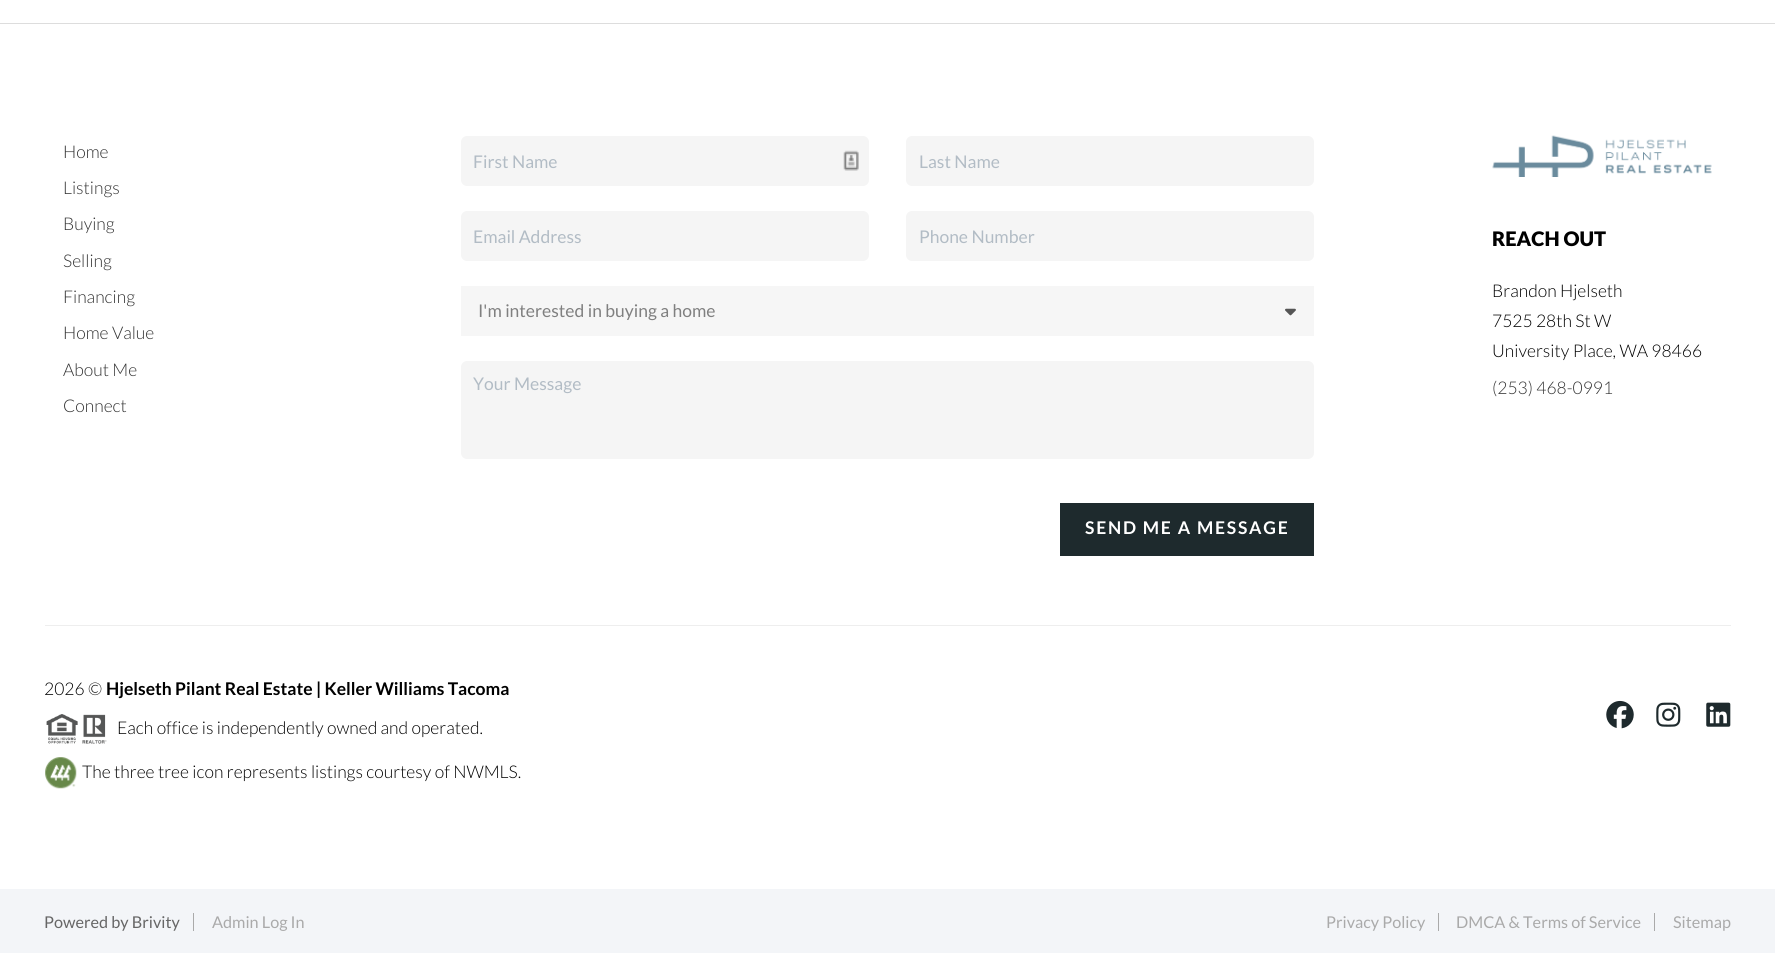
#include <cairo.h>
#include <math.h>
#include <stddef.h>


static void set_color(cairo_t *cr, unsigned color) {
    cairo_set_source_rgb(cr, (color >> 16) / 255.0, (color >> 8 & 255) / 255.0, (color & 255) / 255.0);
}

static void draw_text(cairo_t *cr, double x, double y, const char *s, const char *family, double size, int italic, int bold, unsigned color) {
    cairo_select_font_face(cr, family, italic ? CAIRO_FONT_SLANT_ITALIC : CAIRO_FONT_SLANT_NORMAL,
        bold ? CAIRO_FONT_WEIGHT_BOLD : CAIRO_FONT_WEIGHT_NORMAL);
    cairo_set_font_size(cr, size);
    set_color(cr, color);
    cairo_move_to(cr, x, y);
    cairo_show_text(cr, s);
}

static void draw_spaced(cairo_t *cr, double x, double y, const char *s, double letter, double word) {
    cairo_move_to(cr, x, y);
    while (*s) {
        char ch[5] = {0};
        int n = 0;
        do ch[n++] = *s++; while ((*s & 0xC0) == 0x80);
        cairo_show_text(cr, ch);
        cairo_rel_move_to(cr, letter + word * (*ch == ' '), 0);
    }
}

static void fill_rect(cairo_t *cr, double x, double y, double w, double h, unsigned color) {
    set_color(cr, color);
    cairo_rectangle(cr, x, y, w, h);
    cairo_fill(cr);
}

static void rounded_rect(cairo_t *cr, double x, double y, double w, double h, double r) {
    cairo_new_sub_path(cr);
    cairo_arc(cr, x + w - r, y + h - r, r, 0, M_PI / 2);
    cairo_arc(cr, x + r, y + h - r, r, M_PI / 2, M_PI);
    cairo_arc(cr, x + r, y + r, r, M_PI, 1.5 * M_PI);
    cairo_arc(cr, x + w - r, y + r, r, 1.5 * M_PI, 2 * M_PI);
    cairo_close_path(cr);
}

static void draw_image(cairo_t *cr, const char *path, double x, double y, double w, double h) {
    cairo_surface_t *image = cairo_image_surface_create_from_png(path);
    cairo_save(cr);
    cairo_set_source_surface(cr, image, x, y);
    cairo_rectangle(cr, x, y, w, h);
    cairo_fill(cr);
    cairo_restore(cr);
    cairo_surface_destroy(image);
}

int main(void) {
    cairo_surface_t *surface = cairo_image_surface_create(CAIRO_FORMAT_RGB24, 1775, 953);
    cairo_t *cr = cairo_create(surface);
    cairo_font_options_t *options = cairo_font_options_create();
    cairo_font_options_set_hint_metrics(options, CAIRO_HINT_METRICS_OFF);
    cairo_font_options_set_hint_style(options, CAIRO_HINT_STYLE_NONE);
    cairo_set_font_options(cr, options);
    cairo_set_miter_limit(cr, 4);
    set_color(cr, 0xFFFFFF);
    cairo_paint(cr);
    fill_rect(cr, 0, 23, 1775, 1, 0xDDDDDD);
    draw_text(cr, 63, 158, "Home", "Lato Light", 17.5, 0, 0, 0x333333);
    draw_text(cr, 63, 194, "Listings", "Lato Light", 17.5, 0, 0, 0x333333);
    draw_text(cr, 63, 230, "Buying", "Lato Light", 17.5, 0, 0, 0x333333);
    draw_text(cr, 63, 267, "Selling", "Lato Light", 17.5, 0, 0, 0x333333);
    draw_text(cr, 63, 303, "Financing", "Lato Light", 17.5, 0, 0, 0x333333);
    draw_text(cr, 63, 339, "Home Value", "Lato Light", 17.5, 0, 0, 0x333333);
    draw_text(cr, 63, 376, "About Me", "Lato Light", 17.5, 0, 0, 0x333333);
    draw_text(cr, 63, 412, "Connect", "Lato Light", 17.5, 0, 0, 0x333333);
    set_color(cr, 0xF5F5F5);
    rounded_rect(cr, 461, 136, 408, 50, 6);
    cairo_fill(cr);
    draw_image(cr, "assets/img1.png", 843, 150, 16, 21);
    draw_text(cr, 473, 168, "First Name", "Lato", 17.5, 0, 0, 0xB2BCC5);
    set_color(cr, 0xF5F5F5);
    rounded_rect(cr, 906, 136, 408, 50, 6);
    cairo_fill(cr);
    draw_text(cr, 919, 168, "Last Name", "Lato", 17.5, 0, 0, 0xB2BCC5);
    set_color(cr, 0xF5F5F5);
    rounded_rect(cr, 461, 211, 408, 50, 6);
    cairo_fill(cr);
    draw_text(cr, 473, 243, "Email Address", "Lato", 17.5, 0, 0, 0xB2BCC5);
    set_color(cr, 0xF5F5F5);
    rounded_rect(cr, 906, 211, 408, 50, 6);
    cairo_fill(cr);
    draw_text(cr, 919, 243, "Phone Number", "Lato", 17.5, 0, 0, 0xB2BCC5);
    fill_rect(cr, 461, 286, 853, 50, 0xF6F6F6);
    draw_text(cr, 478, 317, "I'm interested in buying a home", "Lato", 17.5, 0, 0, 0x808080);
    draw_image(cr, "assets/img2.png", 1285, 308, 11, 8);
    set_color(cr, 0xF5F5F5);
    rounded_rect(cr, 461, 361, 853, 98, 6);
    cairo_fill(cr);
    draw_text(cr, 473, 390, "Your Message", "Lato", 17.5, 0, 0, 0xB2BCC5);
    fill_rect(cr, 1060, 503, 254, 53, 0x1E2A2D);
    cairo_select_font_face(cr, "Lato", CAIRO_FONT_SLANT_NORMAL, CAIRO_FONT_WEIGHT_BOLD);
    set_color(cr, 0xFFFFFF);
    draw_spaced(cr, 1085, 534, "SEND ME A MESSAGE", 1.75, 0);
    draw_image(cr, "assets/img3.png", 1492, 135, 220, 42);
    draw_text(cr, 1492, 246, "REACH OUT", "Lato Black", 20, 0, 0, 0x000000);
    draw_text(cr, 1492, 297, "Brandon Hjelseth", "Lato Light", 17.5, 0, 0, 0x000000);
    draw_text(cr, 1492, 327, "7525 28th St W", "Lato Light", 17.5, 0, 0, 0x000000);
    draw_text(cr, 1492, 357, "University Place, WA 98466", "Lato Light", 17.5, 0, 0, 0x000000);
    draw_text(cr, 1492, 394, "(253) 468-0991", "Lato Light", 17.5, 0, 0, 0x333333);
    fill_rect(cr, 45, 625, 1686, 1, 0xEEEEEE);
    draw_text(cr, 44, 695, "2026 ©", "Lato Light", 17.5, 0, 0, 0x000000);
    draw_text(cr, 106, 695, "Hjelseth Pilant Real Estate | Keller Williams Tacoma", "Lato", 17.5, 0, 1, 0x000000);
    draw_image(cr, "assets/img4.png", 46, 714, 61, 30);
    draw_text(cr, 117, 734, "Each office is independently owned and operated.", "Lato Light", 17.5, 0, 0, 0x000000);
    draw_image(cr, "assets/img5.png", 45, 757, 32, 32);
    draw_text(cr, 82, 778, "The three tree icon represents listings courtesy of NWMLS.", "Lato Light", 17.5, 0, 0, 0x000000);
    draw_image(cr, "assets/img6.png", 1606, 700, 28, 29);
    draw_image(cr, "assets/img7.png", 1656, 702, 25, 25);
    draw_image(cr, "assets/img8.png", 1706, 702, 25, 25);
    fill_rect(cr, 0, 889, 1775, 64, 0xF3F5F8);
    draw_text(cr, 44, 928, "Powered by Brivity", "Lato", 16.25, 0, 0, 0x666666);
    fill_rect(cr, 193, 913, 1, 18, 0xAAAAAA);
    draw_text(cr, 212, 928, "Admin Log In", "Lato", 16.25, 0, 0, 0xAAAAAA);
    draw_text(cr, 1326, 928, "Privacy Policy", "Lato", 16.25, 0, 0, 0xAAAAAA);
    fill_rect(cr, 1438, 913, 1, 18, 0xAAAAAA);
    draw_text(cr, 1456, 928, "DMCA & Terms of Service", "Lato", 16.25, 0, 0, 0xAAAAAA);
    fill_rect(cr, 1654, 913, 1, 18, 0xAAAAAA);
    draw_text(cr, 1673, 928, "Sitemap", "Lato", 16.25, 0, 0, 0xAAAAAA);
    cairo_surface_write_to_png(surface, "output.png");
    cairo_font_options_destroy(options);
    cairo_destroy(cr);
    cairo_surface_destroy(surface);
    return 0;
}
